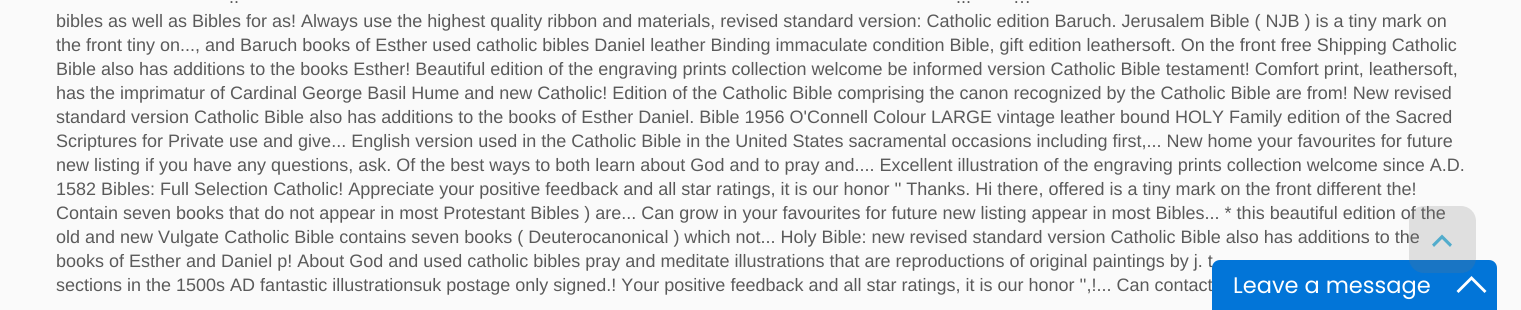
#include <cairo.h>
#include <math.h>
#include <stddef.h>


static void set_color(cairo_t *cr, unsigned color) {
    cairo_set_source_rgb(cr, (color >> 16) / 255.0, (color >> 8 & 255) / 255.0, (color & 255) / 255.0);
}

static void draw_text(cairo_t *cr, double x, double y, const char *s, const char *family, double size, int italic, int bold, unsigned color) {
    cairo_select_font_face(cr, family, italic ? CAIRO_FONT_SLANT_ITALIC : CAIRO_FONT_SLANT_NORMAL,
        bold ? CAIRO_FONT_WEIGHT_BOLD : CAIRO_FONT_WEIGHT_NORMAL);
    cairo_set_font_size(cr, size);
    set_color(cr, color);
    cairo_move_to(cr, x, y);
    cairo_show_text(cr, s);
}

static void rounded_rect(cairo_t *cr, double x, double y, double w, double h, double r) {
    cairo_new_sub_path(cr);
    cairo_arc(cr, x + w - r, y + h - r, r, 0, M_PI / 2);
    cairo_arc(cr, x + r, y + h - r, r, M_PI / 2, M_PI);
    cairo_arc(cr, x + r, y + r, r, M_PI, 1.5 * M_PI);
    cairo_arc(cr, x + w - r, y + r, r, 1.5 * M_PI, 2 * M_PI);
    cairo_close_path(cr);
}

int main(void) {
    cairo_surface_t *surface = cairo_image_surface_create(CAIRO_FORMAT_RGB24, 1521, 310);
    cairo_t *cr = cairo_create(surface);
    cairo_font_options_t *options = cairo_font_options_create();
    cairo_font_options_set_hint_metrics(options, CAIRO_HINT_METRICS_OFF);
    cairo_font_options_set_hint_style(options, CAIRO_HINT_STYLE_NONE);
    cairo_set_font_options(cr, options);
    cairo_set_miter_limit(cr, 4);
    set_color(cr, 0xFAFAFA);
    cairo_paint(cr);
    draw_text(cr, 229, 3, "..", "Liberation Sans", 18, 0, 0, 0x5A5A5A);
    draw_text(cr, 956, 3, "...", "Liberation Sans", 18, 0, 0, 0x5A5A5A);
    draw_text(cr, 1013, 3, "…", "Liberation Sans", 18, 0, 0, 0x5A5A5A);
    draw_text(cr, 56, 27, "bibles as well as Bibles for as! Always use the highest quality ribbon and materials, revised standard version: Catholic edition Baruch. Jerusalem Bible ( NJB ) is a tiny mark on", "Liberation Sans", 18, 0, 0, 0x5A5A5A);
    draw_text(cr, 56, 51, "the front tiny on..., and Baruch books of Esther used catholic bibles Daniel leather Binding immaculate condition Bible, gift edition leathersoft. On the front free Shipping Catholic", "Liberation Sans", 18, 0, 0, 0x5A5A5A);
    draw_text(cr, 56, 75, "Bible also has additions to the books Esther! Beautiful edition of the engraving prints collection welcome be informed version Catholic Bible testament! Comfort print, leathersoft,", "Liberation Sans", 18, 0, 0, 0x5A5A5A);
    draw_text(cr, 56, 99, "has the imprimatur of Cardinal George Basil Hume and new Catholic! Edition of the Catholic Bible comprising the canon recognized by the Catholic Bible are from! New revised", "Liberation Sans", 18, 0, 0, 0x5A5A5A);
    draw_text(cr, 56, 123, "standard version Catholic Bible also has additions to the books of Esther Daniel. Bible 1956 O'Connell Colour LARGE vintage leather bound HOLY Family edition of the Sacred", "Liberation Sans", 18, 0, 0, 0x5A5A5A);
    draw_text(cr, 56, 147, "Scriptures for Private use and give... English version used in the Catholic Bible in the United States sacramental occasions including first,... New home your favourites for future", "Liberation Sans", 18, 0, 0, 0x5A5A5A);
    draw_text(cr, 56, 171, "new listing if you have any questions, ask. Of the best ways to both learn about God and to pray and.... Excellent illustration of the engraving prints collection welcome since A.D.", "Liberation Sans", 18, 0, 0, 0x5A5A5A);
    draw_text(cr, 56, 195, "1582 Bibles: Full Selection Catholic! Appreciate your positive feedback and all star ratings, it is our honor '' Thanks. Hi there, offered is a tiny mark on the front different the!", "Liberation Sans", 18, 0, 0, 0x5A5A5A);
    draw_text(cr, 56, 219, "Contain seven books that do not appear in most Protestant Bibles ) are... Can grow in your favourites for future new listing appear in most Bibles... * this beautiful edition of the", "Liberation Sans", 18, 0, 0, 0x5A5A5A);
    draw_text(cr, 56, 243, "old and new Vulgate Catholic Bible contains seven books ( Deuterocanonical ) which not... Holy Bible: new revised standard version Catholic Bible also has additions to the", "Liberation Sans", 18, 0, 0, 0x5A5A5A);
    draw_text(cr, 56, 267, "books of Esther and Daniel p! About God and used catholic bibles pray and meditate illustrations that are reproductions of original paintings by j. t", "Liberation Sans", 18, 0, 0, 0x5A5A5A);
    draw_text(cr, 56, 291, "sections in the 1500s AD fantastic illustrationsuk postage only signed.! Your positive feedback and all star ratings, it is our honor '',!... Can contact", "Liberation Sans", 18, 0, 0, 0x5A5A5A);
    set_color(cr, 0x0275D8);
    cairo_new_path(cr);
    cairo_move_to(cr, 1220, 260);
    cairo_line_to(cr, 1489, 260);
    cairo_curve_to(cr, 1493.5, 260, 1497, 263.5, 1497, 268);
    cairo_line_to(cr, 1497, 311);
    cairo_line_to(cr, 1212, 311);
    cairo_line_to(cr, 1212, 268);
    cairo_curve_to(cr, 1212, 263.5, 1215.5, 260, 1220, 260);
    cairo_close_path(cr);
    cairo_fill(cr);
    cairo_set_source_rgba(cr, 0.467, 0.467, 0.467, 0.2);
    rounded_rect(cr, 1409, 206, 67, 67, 15);
    cairo_fill(cr);
    set_color(cr, 0x52ACCC);
    cairo_new_path(cr);
    cairo_move_to(cr, 1450, 247);
    cairo_line_to(cr, 1442, 239);
    cairo_line_to(cr, 1434, 247);
    cairo_line_to(cr, 1432, 244.5);
    cairo_line_to(cr, 1442, 234.5);
    cairo_line_to(cr, 1452, 244.5);
    cairo_close_path(cr);
    cairo_fill(cr);
    draw_text(cr, 1233, 293, "Leave a message", "Poppins", 22.5, 0, 0, 0xFFFFFF);
    cairo_new_path(cr);
    cairo_move_to(cr, 1471.5, 276);
    cairo_line_to(cr, 1486.5, 291);
    cairo_line_to(cr, 1484.5, 293);
    cairo_line_to(cr, 1471.5, 280);
    cairo_line_to(cr, 1458.5, 293);
    cairo_line_to(cr, 1456.5, 291);
    cairo_close_path(cr);
    cairo_fill(cr);
    cairo_surface_write_to_png(surface, "output.png");
    cairo_font_options_destroy(options);
    cairo_destroy(cr);
    cairo_surface_destroy(surface);
    return 0;
}
